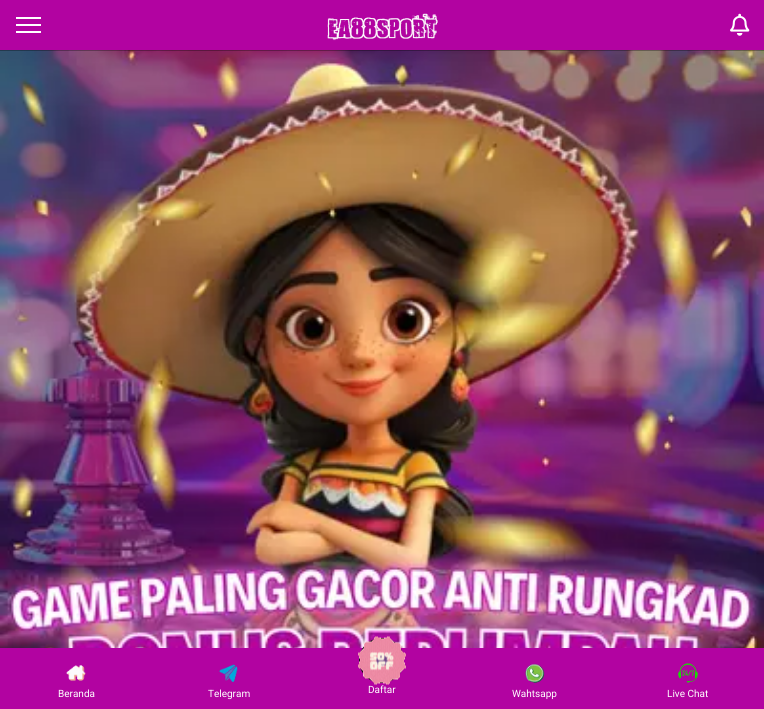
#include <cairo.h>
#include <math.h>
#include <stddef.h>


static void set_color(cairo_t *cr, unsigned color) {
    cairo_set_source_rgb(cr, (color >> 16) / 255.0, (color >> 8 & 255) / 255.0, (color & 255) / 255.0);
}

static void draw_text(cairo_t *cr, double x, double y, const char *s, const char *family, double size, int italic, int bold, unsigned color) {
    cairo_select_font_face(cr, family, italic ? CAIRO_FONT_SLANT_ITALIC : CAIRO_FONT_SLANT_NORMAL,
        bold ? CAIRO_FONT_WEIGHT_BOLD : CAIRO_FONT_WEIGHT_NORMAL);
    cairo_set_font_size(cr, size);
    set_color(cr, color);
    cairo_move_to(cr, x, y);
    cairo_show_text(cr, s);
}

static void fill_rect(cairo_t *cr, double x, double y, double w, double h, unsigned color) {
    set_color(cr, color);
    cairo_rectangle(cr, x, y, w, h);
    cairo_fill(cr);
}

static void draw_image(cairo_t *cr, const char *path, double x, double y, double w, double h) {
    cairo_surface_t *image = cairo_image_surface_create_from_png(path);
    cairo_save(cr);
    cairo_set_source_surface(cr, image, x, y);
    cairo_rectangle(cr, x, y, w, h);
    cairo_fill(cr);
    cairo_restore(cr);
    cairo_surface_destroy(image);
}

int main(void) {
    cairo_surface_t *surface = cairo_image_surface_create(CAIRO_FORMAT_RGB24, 764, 709);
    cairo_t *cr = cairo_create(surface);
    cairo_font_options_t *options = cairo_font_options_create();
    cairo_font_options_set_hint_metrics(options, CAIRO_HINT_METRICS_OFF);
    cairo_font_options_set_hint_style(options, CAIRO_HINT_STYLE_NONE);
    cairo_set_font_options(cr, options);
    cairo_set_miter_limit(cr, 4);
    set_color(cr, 0xFFFFFF);
    cairo_paint(cr);
    draw_image(cr, "assets/img3.png", 0, 50, 764, 598);
    cairo_set_source_rgba(cr, 0, 0, 0, 0.3);
    cairo_rectangle(cr, 0, 50, 764, 1);
    cairo_fill(cr);
    fill_rect(cr, 0, 0, 764, 50, 0xB203A1);
    fill_rect(cr, 16, 24, 25, 2, 0xFFFFFF);
    fill_rect(cr, 16, 17, 25, 2, 0xFFFFFF);
    fill_rect(cr, 16, 31, 25, 2, 0xFFFFFF);
    draw_image(cr, "assets/img1.png", 327, 13, 111, 28);
    draw_image(cr, "assets/img2.png", 730, 13, 20, 23);
    fill_rect(cr, 0, 648, 764, 61, 0xB203A1);
    draw_image(cr, "assets/img4.png", 66, 665, 20, 16);
    draw_text(cr, 58, 697, "Beranda", "Roboto", 10, 0, 0, 0xFFFFFF);
    draw_image(cr, "assets/img5.png", 219, 664, 19, 19);
    draw_text(cr, 208, 697, "Telegram", "Roboto", 10, 0, 0, 0xFFFFFF);
    set_color(cr, 0x141414);
    cairo_new_path(cr);
    cairo_arc(cr, 381.5, 660.5, 22.5, 0, 2 * M_PI);
    cairo_fill(cr);
    draw_image(cr, "assets/img6.png", 358, 636, 48, 49);
    draw_text(cr, 368, 693, "Daftar", "Roboto", 10, 0, 0, 0xFFFFFF);
    draw_image(cr, "assets/img7.png", 525, 663, 20, 20);
    draw_text(cr, 512, 697, "Wahtsapp", "Roboto", 10, 0, 0, 0xFFFFFF);
    draw_image(cr, "assets/img8.png", 678, 663, 20, 20);
    draw_text(cr, 667, 697, "Live Chat", "Roboto", 10, 0, 0, 0xFFFFFF);
    cairo_surface_write_to_png(surface, "output.png");
    cairo_font_options_destroy(options);
    cairo_destroy(cr);
    cairo_surface_destroy(surface);
    return 0;
}
